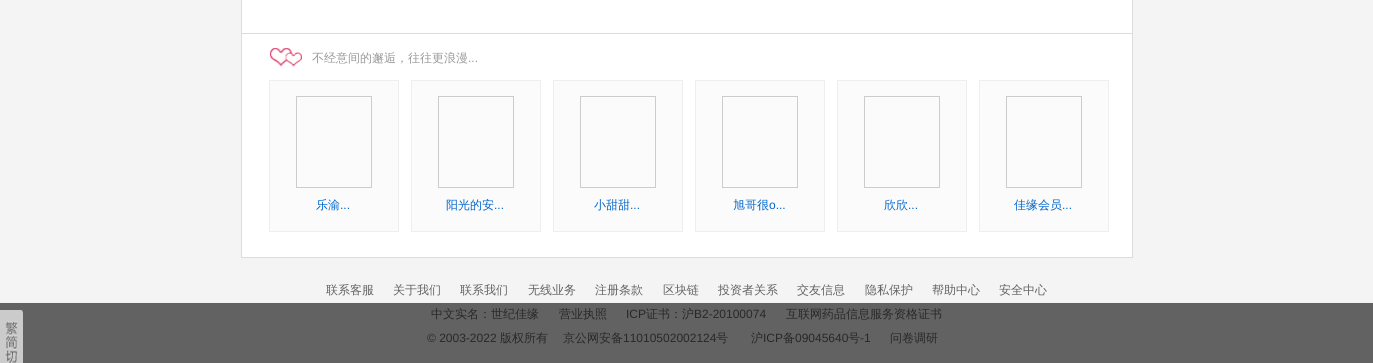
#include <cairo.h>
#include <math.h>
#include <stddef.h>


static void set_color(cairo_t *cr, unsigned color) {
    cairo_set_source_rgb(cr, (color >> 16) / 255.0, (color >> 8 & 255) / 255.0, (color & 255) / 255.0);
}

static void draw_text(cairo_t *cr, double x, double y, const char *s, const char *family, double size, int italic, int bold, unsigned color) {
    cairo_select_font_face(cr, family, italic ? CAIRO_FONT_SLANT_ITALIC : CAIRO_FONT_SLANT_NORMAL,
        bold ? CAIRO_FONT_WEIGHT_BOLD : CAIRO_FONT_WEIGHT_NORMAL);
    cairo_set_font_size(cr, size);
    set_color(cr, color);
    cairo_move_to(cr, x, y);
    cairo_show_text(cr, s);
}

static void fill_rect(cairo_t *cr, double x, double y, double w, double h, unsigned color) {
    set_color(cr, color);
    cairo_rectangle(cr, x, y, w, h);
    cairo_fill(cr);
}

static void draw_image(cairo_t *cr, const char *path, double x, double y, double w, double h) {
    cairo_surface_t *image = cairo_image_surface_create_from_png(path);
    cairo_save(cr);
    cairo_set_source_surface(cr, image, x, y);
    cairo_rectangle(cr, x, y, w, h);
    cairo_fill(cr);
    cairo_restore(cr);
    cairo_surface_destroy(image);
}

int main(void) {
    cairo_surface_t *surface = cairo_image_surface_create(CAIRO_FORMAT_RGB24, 1373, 363);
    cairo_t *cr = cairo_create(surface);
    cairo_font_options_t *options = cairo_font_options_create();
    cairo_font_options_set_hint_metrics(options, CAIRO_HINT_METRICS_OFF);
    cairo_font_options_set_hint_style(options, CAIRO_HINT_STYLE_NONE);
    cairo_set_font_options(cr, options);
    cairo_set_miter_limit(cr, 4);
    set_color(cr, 0xF4F4F4);
    cairo_paint(cr);
    fill_rect(cr, 0, 303, 1373, 60, 0x626262);
    set_color(cr, 0xFFFFFF);
    cairo_rectangle(cr, 241.5, -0.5, 891, 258);
    cairo_fill_preserve(cr);
    set_color(cr, 0xDCDCDC);
    cairo_set_line_width(cr, 1);
    cairo_stroke(cr);
    fill_rect(cr, 242, 33, 890, 1, 0xDBDBDB);
    draw_image(cr, "assets/img1.png", 270, 48, 32, 19);
    draw_text(cr, 312, 62, "不经意间的邂逅，往往更浪漫", "WenQuanYi Zen Hei Medium", 12, 0, 0, 0x999999);
    draw_text(cr, 468, 62, "...", "Liberation Sans", 12, 0, 0, 0x999999);
    set_color(cr, 0xFBFBFB);
    cairo_rectangle(cr, 269.5, 80.5, 129, 151);
    cairo_fill_preserve(cr);
    set_color(cr, 0xEEEEEE);
    cairo_stroke(cr);
    cairo_rectangle(cr, 296.5, 96.5, 75, 91);
    set_color(cr, 0xCCCCCC);
    cairo_stroke(cr);
    draw_text(cr, 316, 209, "乐渝", "WenQuanYi Zen Hei Medium", 12, 0, 0, 0x0066CC);
    draw_text(cr, 340, 209, "...", "Liberation Sans", 12, 0, 0, 0x0066CC);
    set_color(cr, 0xFBFBFB);
    cairo_rectangle(cr, 411.5, 80.5, 129, 151);
    cairo_fill_preserve(cr);
    set_color(cr, 0xEEEEEE);
    cairo_stroke(cr);
    cairo_rectangle(cr, 438.5, 96.5, 75, 91);
    set_color(cr, 0xCCCCCC);
    cairo_stroke(cr);
    draw_text(cr, 446, 209, "阳光的安", "WenQuanYi Zen Hei Medium", 12, 0, 0, 0x0066CC);
    draw_text(cr, 494, 209, "...", "Liberation Sans", 12, 0, 0, 0x0066CC);
    set_color(cr, 0xFBFBFB);
    cairo_rectangle(cr, 553.5, 80.5, 129, 151);
    cairo_fill_preserve(cr);
    set_color(cr, 0xEEEEEE);
    cairo_stroke(cr);
    cairo_rectangle(cr, 580.5, 96.5, 75, 91);
    set_color(cr, 0xCCCCCC);
    cairo_stroke(cr);
    draw_text(cr, 594, 209, "小甜甜", "WenQuanYi Zen Hei Medium", 12, 0, 0, 0x0066CC);
    draw_text(cr, 630, 209, "...", "Liberation Sans", 12, 0, 0, 0x0066CC);
    set_color(cr, 0xFBFBFB);
    cairo_rectangle(cr, 695.5, 80.5, 129, 151);
    cairo_fill_preserve(cr);
    set_color(cr, 0xEEEEEE);
    cairo_stroke(cr);
    cairo_rectangle(cr, 722.5, 96.5, 75, 91);
    set_color(cr, 0xCCCCCC);
    cairo_stroke(cr);
    draw_text(cr, 733, 209, "旭哥很", "WenQuanYi Zen Hei Medium", 12, 0, 0, 0x0066CC);
    draw_text(cr, 769, 209, "o...", "Liberation Sans", 12, 0, 0, 0x0066CC);
    set_color(cr, 0xFBFBFB);
    cairo_rectangle(cr, 837.5, 80.5, 129, 151);
    cairo_fill_preserve(cr);
    set_color(cr, 0xEEEEEE);
    cairo_stroke(cr);
    cairo_rectangle(cr, 864.5, 96.5, 75, 91);
    set_color(cr, 0xCCCCCC);
    cairo_stroke(cr);
    draw_text(cr, 884, 209, "欣欣", "WenQuanYi Zen Hei Medium", 12, 0, 0, 0x0066CC);
    draw_text(cr, 908, 209, "...", "Liberation Sans", 12, 0, 0, 0x0066CC);
    set_color(cr, 0xFBFBFB);
    cairo_rectangle(cr, 979.5, 80.5, 129, 151);
    cairo_fill_preserve(cr);
    set_color(cr, 0xEEEEEE);
    cairo_stroke(cr);
    cairo_rectangle(cr, 1006.5, 96.5, 75, 91);
    set_color(cr, 0xCCCCCC);
    cairo_stroke(cr);
    draw_text(cr, 1014, 209, "佳缘会员", "WenQuanYi Zen Hei Medium", 12, 0, 0, 0x0066CC);
    draw_text(cr, 1062, 209, "...", "Liberation Sans", 12, 0, 0, 0x0066CC);
    draw_image(cr, "assets/img2.png", 0, 310, 23, 53);
    draw_text(cr, 326, 294, "联系客服", "WenQuanYi Zen Hei Medium", 12, 0, 0, 0x636363);
    draw_text(cr, 393, 294, "关于我们", "WenQuanYi Zen Hei Medium", 12, 0, 0, 0x636363);
    draw_text(cr, 460, 294, "联系我们", "WenQuanYi Zen Hei Medium", 12, 0, 0, 0x636363);
    draw_text(cr, 528, 294, "无线业务", "WenQuanYi Zen Hei Medium", 12, 0, 0, 0x636363);
    draw_text(cr, 595, 294, "注册条款", "WenQuanYi Zen Hei Medium", 12, 0, 0, 0x636363);
    draw_text(cr, 663, 294, "区块链", "WenQuanYi Zen Hei Medium", 12, 0, 0, 0x636363);
    draw_text(cr, 718, 294, "投资者关系", "WenQuanYi Zen Hei Medium", 12, 0, 0, 0x636363);
    draw_text(cr, 797, 294, "交友信息", "WenQuanYi Zen Hei Medium", 12, 0, 0, 0x636363);
    draw_text(cr, 865, 294, "隐私保护", "WenQuanYi Zen Hei Medium", 12, 0, 0, 0x636363);
    draw_text(cr, 932, 294, "帮助中心", "WenQuanYi Zen Hei Medium", 12, 0, 0, 0x636363);
    draw_text(cr, 999, 294, "安全中心", "WenQuanYi Zen Hei Medium", 12, 0, 0, 0x636363);
    draw_text(cr, 431, 318, "中文实名：世纪佳缘", "WenQuanYi Zen Hei Medium", 12, 0, 0, 0x282828);
    draw_text(cr, 559, 318, "营业执照", "WenQuanYi Zen Hei Medium", 12, 0, 0, 0x282828);
    draw_text(cr, 626, 318, "ICP", "Liberation Sans", 12, 0, 0, 0x282828);
    draw_text(cr, 646, 318, "证书：沪", "WenQuanYi Zen Hei Medium", 12, 0, 0, 0x282828);
    draw_text(cr, 694, 318, "B2-20100074", "Liberation Sans", 12, 0, 0, 0x282828);
    draw_text(cr, 786, 318, "互联网药品信息服务资格证书", "WenQuanYi Zen Hei Medium", 12, 0, 0, 0x282828);
    draw_text(cr, 427, 342, "© 2003-2022", "Liberation Sans", 12, 0, 0, 0x282828);
    draw_text(cr, 500, 342, "版权所有", "WenQuanYi Zen Hei Medium", 12, 0, 0, 0x282828);
    draw_text(cr, 563, 342, "京公网安备", "WenQuanYi Zen Hei Medium", 12, 0, 0, 0x282828);
    draw_text(cr, 623, 342, "11010502002124", "Liberation Sans", 12, 0, 0, 0x282828);
    draw_text(cr, 716, 342, "号", "WenQuanYi Zen Hei Medium", 12, 0, 0, 0x282828);
    draw_text(cr, 751, 342, "沪", "WenQuanYi Zen Hei Medium", 12, 0, 0, 0x282828);
    draw_text(cr, 763, 342, "ICP", "Liberation Sans", 12, 0, 0, 0x282828);
    draw_text(cr, 783, 342, "备", "WenQuanYi Zen Hei Medium", 12, 0, 0, 0x282828);
    draw_text(cr, 795, 342, "09045640", "Liberation Sans", 12, 0, 0, 0x282828);
    draw_text(cr, 848, 342, "号", "WenQuanYi Zen Hei Medium", 12, 0, 0, 0x282828);
    draw_text(cr, 860, 342, "-1", "Liberation Sans", 12, 0, 0, 0x282828);
    draw_text(cr, 890, 342, "问卷调研", "WenQuanYi Zen Hei Medium", 12, 0, 0, 0x282828);
    cairo_surface_write_to_png(surface, "output.png");
    cairo_font_options_destroy(options);
    cairo_destroy(cr);
    cairo_surface_destroy(surface);
    return 0;
}
